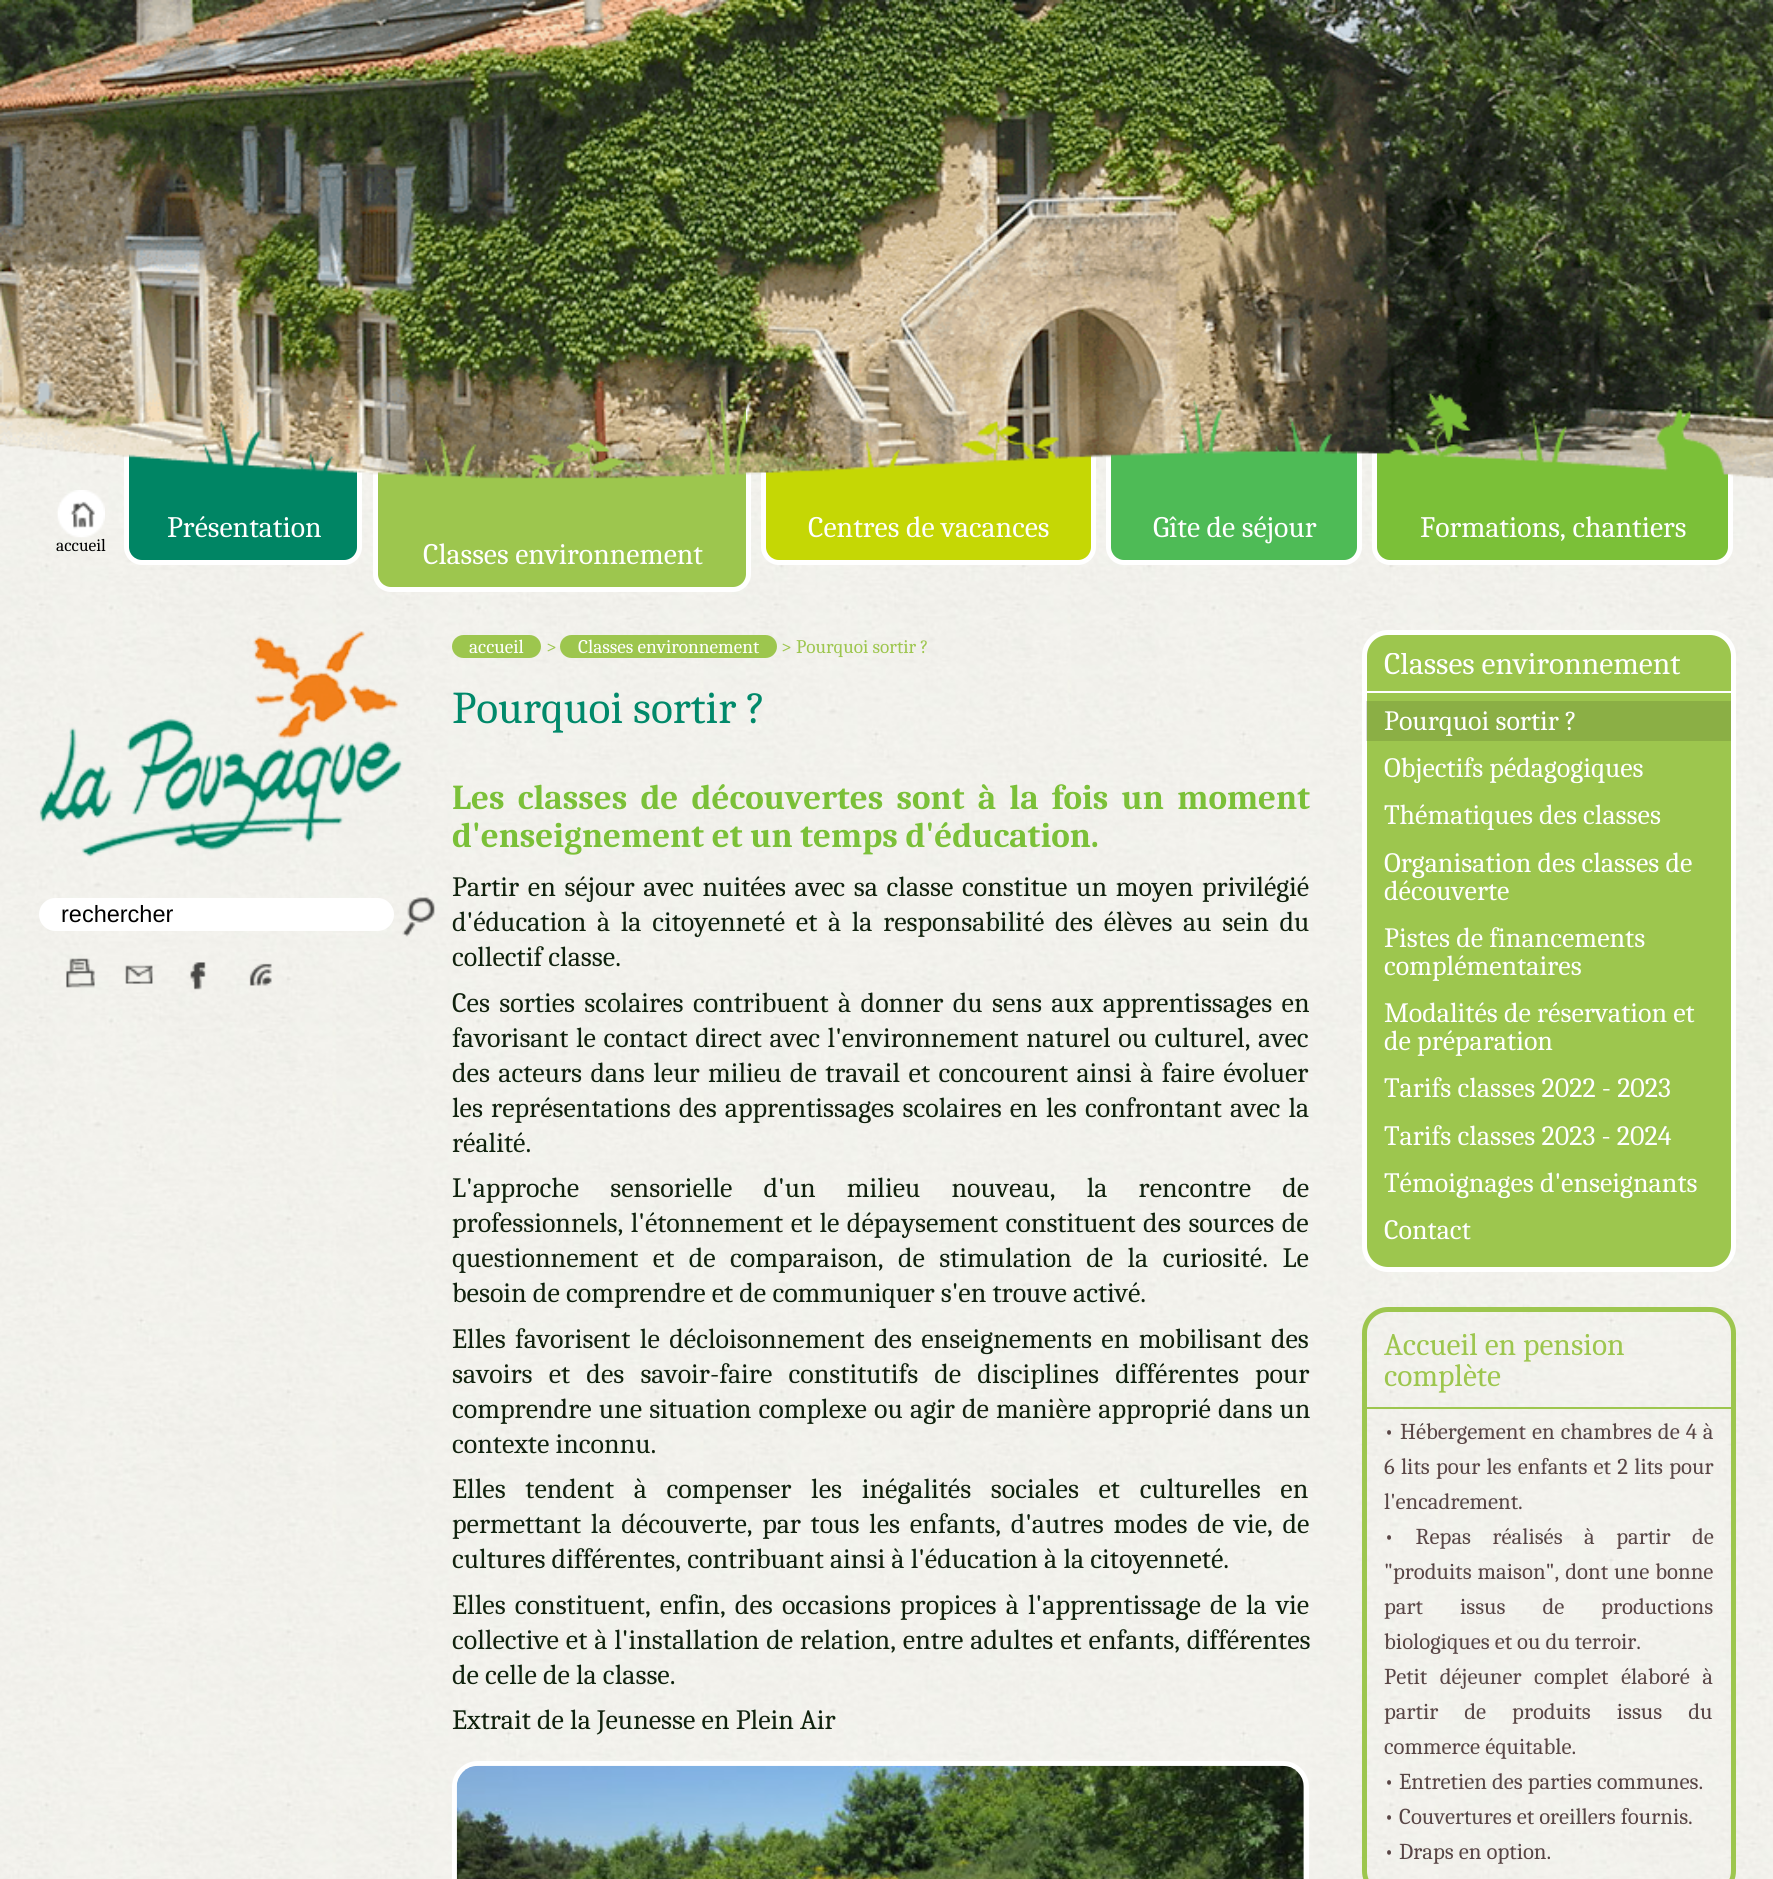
#include <cairo.h>
#include <math.h>
#include <stddef.h>


static void set_color(cairo_t *cr, unsigned color) {
    cairo_set_source_rgb(cr, (color >> 16) / 255.0, (color >> 8 & 255) / 255.0, (color & 255) / 255.0);
}

static void draw_text(cairo_t *cr, double x, double y, const char *s, const char *family, double size, int italic, int bold, unsigned color) {
    cairo_select_font_face(cr, family, italic ? CAIRO_FONT_SLANT_ITALIC : CAIRO_FONT_SLANT_NORMAL,
        bold ? CAIRO_FONT_WEIGHT_BOLD : CAIRO_FONT_WEIGHT_NORMAL);
    cairo_set_font_size(cr, size);
    set_color(cr, color);
    cairo_move_to(cr, x, y);
    cairo_show_text(cr, s);
}

static void draw_spaced(cairo_t *cr, double x, double y, const char *s, double letter, double word) {
    cairo_move_to(cr, x, y);
    while (*s) {
        char ch[5] = {0};
        int n = 0;
        do ch[n++] = *s++; while ((*s & 0xC0) == 0x80);
        cairo_show_text(cr, ch);
        cairo_rel_move_to(cr, letter + word * (*ch == ' '), 0);
    }
}

static void fill_rect(cairo_t *cr, double x, double y, double w, double h, unsigned color) {
    set_color(cr, color);
    cairo_rectangle(cr, x, y, w, h);
    cairo_fill(cr);
}

static void rounded_rect(cairo_t *cr, double x, double y, double w, double h, double r) {
    cairo_new_sub_path(cr);
    cairo_arc(cr, x + w - r, y + h - r, r, 0, M_PI / 2);
    cairo_arc(cr, x + r, y + h - r, r, M_PI / 2, M_PI);
    cairo_arc(cr, x + r, y + r, r, M_PI, 1.5 * M_PI);
    cairo_arc(cr, x + w - r, y + r, r, 1.5 * M_PI, 2 * M_PI);
    cairo_close_path(cr);
}

static void draw_image(cairo_t *cr, const char *path, double x, double y, double w, double h) {
    cairo_surface_t *image = cairo_image_surface_create_from_png(path);
    cairo_save(cr);
    cairo_set_source_surface(cr, image, x, y);
    cairo_rectangle(cr, x, y, w, h);
    cairo_fill(cr);
    cairo_restore(cr);
    cairo_surface_destroy(image);
}

int main(void) {
    cairo_surface_t *surface = cairo_image_surface_create(CAIRO_FORMAT_RGB24, 1773, 1879);
    cairo_t *cr = cairo_create(surface);
    cairo_font_options_t *options = cairo_font_options_create();
    cairo_font_options_set_hint_metrics(options, CAIRO_HINT_METRICS_OFF);
    cairo_font_options_set_hint_style(options, CAIRO_HINT_STYLE_NONE);
    cairo_set_font_options(cr, options);
    cairo_set_miter_limit(cr, 4);
    set_color(cr, 0xFFFFFF);
    cairo_paint(cr);
    draw_image(cr, "assets/img1.png", 0, 400, 1773, 1479);
    set_color(cr, 0x008564);
    rounded_rect(cr, 126.5, 317.5, 233, 245, 15.5);
    cairo_fill_preserve(cr);
    set_color(cr, 0xFFFFFF);
    cairo_set_line_width(cr, 5);
    cairo_stroke(cr);
    set_color(cr, 0xC5D705);
    rounded_rect(cr, 763.5, 317.5, 330, 245, 15.5);
    cairo_fill_preserve(cr);
    set_color(cr, 0xFFFFFF);
    cairo_stroke(cr);
    set_color(cr, 0x4EBB56);
    rounded_rect(cr, 1108.5, 317.5, 251, 245, 15.5);
    cairo_fill_preserve(cr);
    set_color(cr, 0xFFFFFF);
    cairo_stroke(cr);
    set_color(cr, 0x7BC038);
    rounded_rect(cr, 1374.5, 317.5, 356, 245, 15.5);
    cairo_fill_preserve(cr);
    set_color(cr, 0xFFFFFF);
    cairo_stroke(cr);
    set_color(cr, 0x9DC64E);
    rounded_rect(cr, 375.5, 343.5, 373, 246, 15.5);
    cairo_fill_preserve(cr);
    set_color(cr, 0xFFFFFF);
    cairo_stroke(cr);
    draw_image(cr, "assets/img2.png", 0, 0, 1773, 479);
    draw_text(cr, 167, 537, "Présentation", "Caladea", 29.75, 0, 0, 0xFFFFFF);
    draw_text(cr, 808, 537, "Centres de vacances", "Caladea", 29.75, 0, 0, 0xFFFFFF);
    draw_text(cr, 1153, 537, "Gîte de séjour", "Caladea", 29.75, 0, 0, 0xFFFFFF);
    draw_text(cr, 1420, 537, "Formations, chantiers", "Caladea", 29.75, 0, 0, 0xFFFFFF);
    draw_image(cr, "assets/img3.png", 57, 490, 48, 48);
    draw_text(cr, 56, 551, "accueil", "Caladea", 17.5, 0, 0, 0x000000);
    draw_text(cr, 423, 564, "Classes environnement", "Caladea", 29.75, 0, 0, 0xFFFFFF);
    draw_image(cr, "assets/img4.png", 39, 631, 363, 226);
    rounded_rect(cr, 39, 898, 355, 33, 16.5);
    cairo_fill(cr);
    draw_text(cr, 61, 922, "rechercher", "Liberation Sans", 23.5, 0, 0, 0x000000);
    draw_image(cr, "assets/img5.png", 402, 897, 33, 40);
    draw_image(cr, "assets/img6.png", 66, 958, 29, 30);
    draw_image(cr, "assets/img7.png", 125, 965, 28, 19);
    draw_image(cr, "assets/img8.png", 190, 962, 16, 28);
    draw_image(cr, "assets/img9.png", 249, 963, 23, 23);
    set_color(cr, 0x9DC64E);
    rounded_rect(cr, 452, 635, 89, 23, 11.5);
    cairo_fill(cr);
    draw_text(cr, 469, 653, "accueil", "Caladea", 19.25, 0, 0, 0xFFFFFF);
    draw_text(cr, 546, 653, ">", "Caladea", 19.25, 0, 0, 0x9DC64E);
    rounded_rect(cr, 560, 635, 217, 23, 11.5);
    cairo_fill(cr);
    draw_text(cr, 578, 653, "Classes environnement", "Caladea", 19.25, 0, 0, 0xFFFFFF);
    draw_text(cr, 781, 653, "> Pourquoi sortir ?", "Caladea", 19.25, 0, 0, 0x9DC64E);
    draw_text(cr, 452, 723, "Pourquoi sortir ?", "Caladea", 45.5, 0, 0, 0x00896A);
    cairo_select_font_face(cr, "Caladea", CAIRO_FONT_SLANT_NORMAL, CAIRO_FONT_WEIGHT_BOLD);
    cairo_set_font_size(cr, 35);
    set_color(cr, 0x7BC038);
    draw_spaced(cr, 452, 809, "Les classes de découvertes sont à la fois un moment", 0, 5.5);
    draw_text(cr, 452, 847, "d'enseignement et un temps d'éducation.", "Caladea", 35, 0, 1, 0x7BC038);
    cairo_select_font_face(cr, "Caladea", CAIRO_FONT_SLANT_NORMAL, CAIRO_FONT_WEIGHT_NORMAL);
    cairo_set_font_size(cr, 28);
    set_color(cr, 0x10220D);
    draw_spaced(cr, 452, 896, "Partir en séjour avec nuitées avec sa classe constitue un moyen privilégié", 0, 2.5);
    draw_spaced(cr, 452, 931, "d'éducation à la citoyenneté et à la responsabilité des élèves au sein du", 0, 4.5);
    draw_text(cr, 452, 966, "collectif classe.", "Caladea", 28, 0, 0, 0x10220D);
    draw_spaced(cr, 452, 1012, "Ces sorties scolaires contribuent à donner du sens aux apprentissages en", 0, 3.25);
    draw_spaced(cr, 452, 1047, "favorisant le contact direct avec l'environnement naturel ou culturel, avec", 0, 1.5);
    draw_spaced(cr, 452, 1082, "des acteurs dans leur milieu de travail et concourent ainsi à faire évoluer", 0, 2.25);
    draw_spaced(cr, 452, 1117, "les représentations des apprentissages scolaires en les confrontant avec la", 0, 2);
    draw_text(cr, 452, 1152, "réalité.", "Caladea", 28, 0, 0, 0x10220D);
    draw_spaced(cr, 452, 1197, "L'approche sensorielle d'un milieu nouveau, la rencontre de", 0, 25);
    draw_spaced(cr, 452, 1232, "professionnels, l'étonnement et le dépaysement constituent des sources de", 0, 1.25);
    draw_spaced(cr, 452, 1267, "questionnement et de comparaison, de stimulation de la curiosité. Le", 0, 8.25);
    draw_text(cr, 452, 1302, "besoin de comprendre et de communiquer s'en trouve activé.", "Caladea", 28, 0, 0, 0x10220D);
    draw_spaced(cr, 452, 1348, "Elles favorisent le décloisonnement des enseignements en mobilisant des", 0, 3.25);
    draw_spaced(cr, 452, 1383, "savoirs et des savoir-faire constitutifs de disciplines différentes pour", 0, 10);
    draw_spaced(cr, 452, 1418, "comprendre une situation complexe ou agir de manière approprié dans un", 0, 1);
    draw_text(cr, 452, 1453, "contexte inconnu.", "Caladea", 28, 0, 0, 0x10220D);
    draw_spaced(cr, 452, 1498, "Elles tendent à compenser les inégalités sociales et culturelles en", 0, 13.5);
    draw_spaced(cr, 452, 1533, "permettant la découverte, par tous les enfants, d'autres modes de vie, de", 0, 3.5);
    draw_text(cr, 452, 1568, "cultures différentes, contribuant ainsi à l'éducation à la citoyenneté.", "Caladea", 28, 0, 0, 0x10220D);
    draw_spaced(cr, 452, 1614, "Elles constituent, enfin, des occasions propices à l'apprentissage de la vie", 0, 3);
    draw_spaced(cr, 452, 1649, "collective et à l'installation de relation, entre adultes et enfants, différentes", 0, 0.75);
    draw_text(cr, 452, 1684, "de celle de la classe.", "Caladea", 28, 0, 0, 0x10220D);
    draw_text(cr, 452, 1729, "Extrait de la Jeunesse en Plein Air", "Caladea", 28, 0, 0, 0x10220D);
    rounded_rect(cr, 454.5, 1763.5, 852, 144, 23.5);
    set_color(cr, 0xFFFFFF);
    cairo_stroke(cr);
    draw_image(cr, "assets/img10.png", 456, 1765, 848, 114);
    set_color(cr, 0x9DC64E);
    rounded_rect(cr, 1364.5, 632.5, 369, 637, 23.5);
    cairo_fill_preserve(cr);
    set_color(cr, 0xFFFFFF);
    cairo_stroke(cr);
    fill_rect(cr, 1367, 691, 364, 2, 0xFFFFFF);
    cairo_save(cr);
    cairo_rectangle(cr, 1367, 653, 364, 38);
    cairo_clip(cr);
    draw_text(cr, 1384, 674, "Classes environnement", "Caladea", 31.5, 0, 0, 0xFFFFFF);
    cairo_restore(cr);
    cairo_set_source_rgba(cr, 0, 0, 0, 0.12);
    cairo_rectangle(cr, 1366, 701, 365, 40);
    cairo_fill(cr);
    draw_text(cr, 1384, 730, "Pourquoi sortir ?", "Caladea", 28, 0, 0, 0xFFFFFF);
    draw_text(cr, 1384, 777, "Objectifs pédagogiques", "Caladea", 28, 0, 0, 0xFFFFFF);
    draw_text(cr, 1384, 824, "Thématiques des classes", "Caladea", 28, 0, 0, 0xFFFFFF);
    draw_text(cr, 1384, 872, "Organisation des classes de", "Caladea", 28, 0, 0, 0xFFFFFF);
    draw_text(cr, 1384, 900, "découverte", "Caladea", 28, 0, 0, 0xFFFFFF);
    draw_text(cr, 1384, 947, "Pistes de financements", "Caladea", 28, 0, 0, 0xFFFFFF);
    draw_text(cr, 1384, 975, "complémentaires", "Caladea", 28, 0, 0, 0xFFFFFF);
    draw_text(cr, 1384, 1022, "Modalités de réservation et", "Caladea", 28, 0, 0, 0xFFFFFF);
    draw_text(cr, 1384, 1050, "de préparation", "Caladea", 28, 0, 0, 0xFFFFFF);
    draw_text(cr, 1384, 1097, "Tarifs classes 2022 - 2023", "Caladea", 28, 0, 0, 0xFFFFFF);
    draw_text(cr, 1384, 1145, "Tarifs classes 2023 - 2024", "Caladea", 28, 0, 0, 0xFFFFFF);
    draw_text(cr, 1384, 1192, "Témoignages d'enseignants", "Caladea", 28, 0, 0, 0xFFFFFF);
    draw_text(cr, 1384, 1239, "Contact", "Caladea", 28, 0, 0, 0xFFFFFF);
    rounded_rect(cr, 1364.5, 1309.5, 369, 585, 23.5);
    set_color(cr, 0x9DC64E);
    cairo_stroke(cr);
    fill_rect(cr, 1367, 1407, 364, 2, 0x9DC64E);
    draw_text(cr, 1384, 1355, "Accueil en pension", "Caladea", 31.5, 0, 0, 0x9DC64E);
    draw_text(cr, 1384, 1386, "complète", "Caladea", 31.5, 0, 0, 0x9DC64E);
    cairo_set_font_size(cr, 22.75);
    set_color(cr, 0x584545);
    draw_spaced(cr, 1384, 1439, "• Hébergement en chambres de 4 à", 0, 1);
    draw_spaced(cr, 1384, 1474, "6 lits pour les enfants et 2 lits pour", 0, 1.25);
    draw_text(cr, 1384, 1509, "l'encadrement.", "Caladea", 22.75, 0, 0, 0x584545);
    draw_spaced(cr, 1384, 1544, "• Repas réalisés à partir de", 0, 16.5);
    draw_spaced(cr, 1384, 1579, "\"produits maison\", dont une bonne", 0, 1);
    draw_spaced(cr, 1384, 1614, "part issus de productions", 0, 32);
    draw_text(cr, 1384, 1649, "biologiques et ou du terroir.", "Caladea", 22.75, 0, 0, 0x584545);
    draw_spaced(cr, 1384, 1684, "Petit déjeuner complet élaboré à", 0, 7.5);
    draw_spaced(cr, 1384, 1719, "partir de produits issus du", 0, 21);
    draw_text(cr, 1384, 1754, "commerce équitable.", "Caladea", 22.75, 0, 0, 0x584545);
    draw_text(cr, 1384, 1789, "• Entretien des parties communes.", "Caladea", 22.75, 0, 0, 0x584545);
    draw_text(cr, 1384, 1824, "• Couvertures et oreillers fournis.", "Caladea", 22.75, 0, 0, 0x584545);
    draw_text(cr, 1384, 1859, "• Draps en option.", "Caladea", 22.75, 0, 0, 0x584545);
    cairo_surface_write_to_png(surface, "output.png");
    cairo_font_options_destroy(options);
    cairo_destroy(cr);
    cairo_surface_destroy(surface);
    return 0;
}
